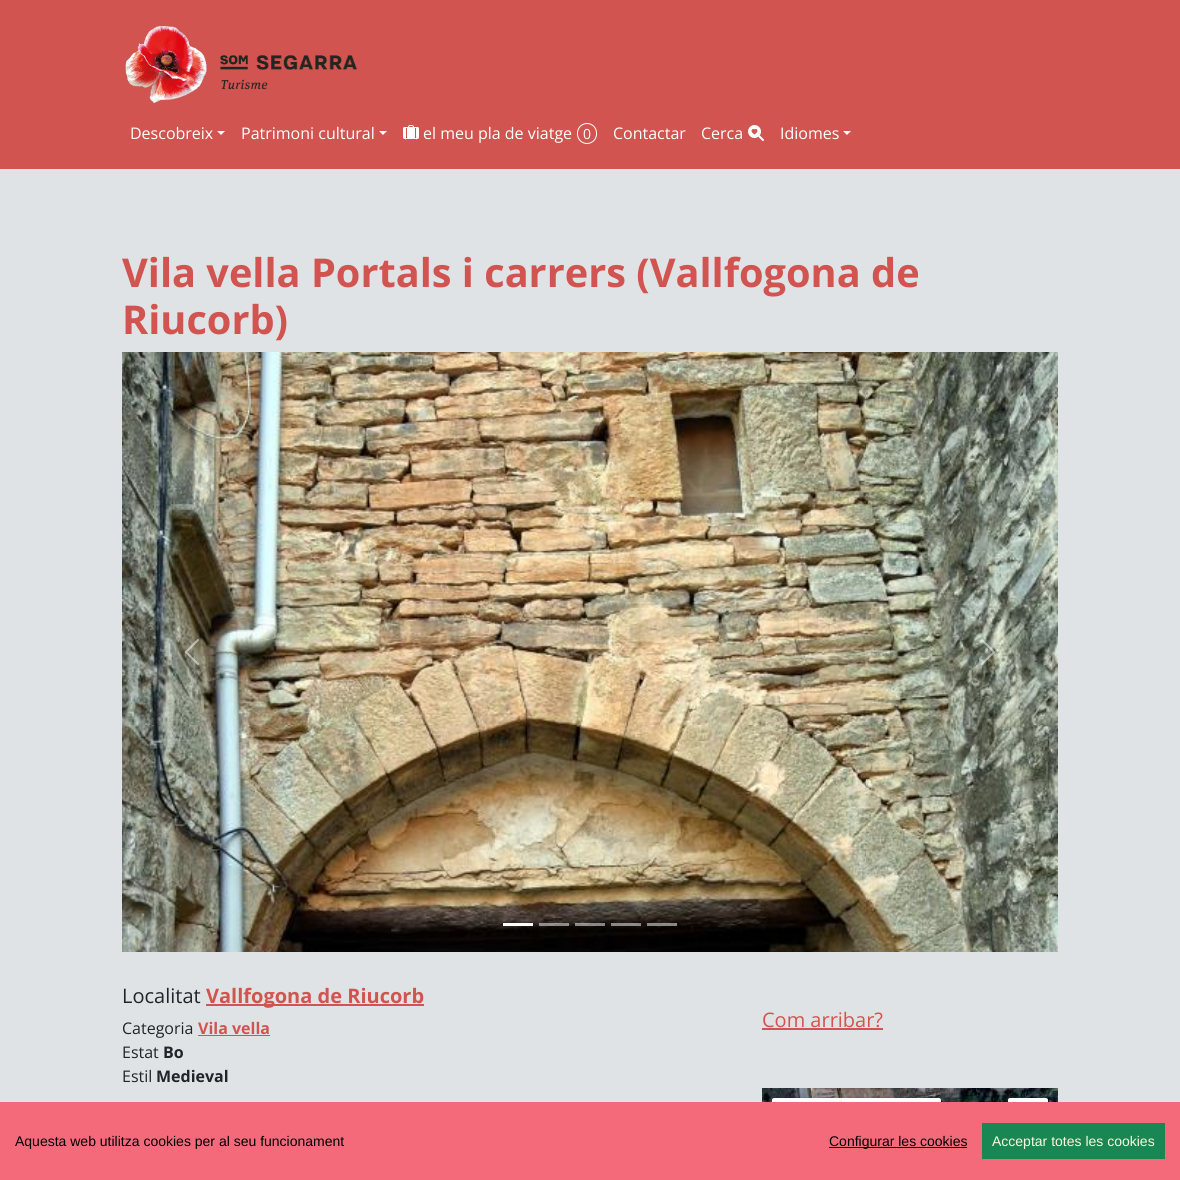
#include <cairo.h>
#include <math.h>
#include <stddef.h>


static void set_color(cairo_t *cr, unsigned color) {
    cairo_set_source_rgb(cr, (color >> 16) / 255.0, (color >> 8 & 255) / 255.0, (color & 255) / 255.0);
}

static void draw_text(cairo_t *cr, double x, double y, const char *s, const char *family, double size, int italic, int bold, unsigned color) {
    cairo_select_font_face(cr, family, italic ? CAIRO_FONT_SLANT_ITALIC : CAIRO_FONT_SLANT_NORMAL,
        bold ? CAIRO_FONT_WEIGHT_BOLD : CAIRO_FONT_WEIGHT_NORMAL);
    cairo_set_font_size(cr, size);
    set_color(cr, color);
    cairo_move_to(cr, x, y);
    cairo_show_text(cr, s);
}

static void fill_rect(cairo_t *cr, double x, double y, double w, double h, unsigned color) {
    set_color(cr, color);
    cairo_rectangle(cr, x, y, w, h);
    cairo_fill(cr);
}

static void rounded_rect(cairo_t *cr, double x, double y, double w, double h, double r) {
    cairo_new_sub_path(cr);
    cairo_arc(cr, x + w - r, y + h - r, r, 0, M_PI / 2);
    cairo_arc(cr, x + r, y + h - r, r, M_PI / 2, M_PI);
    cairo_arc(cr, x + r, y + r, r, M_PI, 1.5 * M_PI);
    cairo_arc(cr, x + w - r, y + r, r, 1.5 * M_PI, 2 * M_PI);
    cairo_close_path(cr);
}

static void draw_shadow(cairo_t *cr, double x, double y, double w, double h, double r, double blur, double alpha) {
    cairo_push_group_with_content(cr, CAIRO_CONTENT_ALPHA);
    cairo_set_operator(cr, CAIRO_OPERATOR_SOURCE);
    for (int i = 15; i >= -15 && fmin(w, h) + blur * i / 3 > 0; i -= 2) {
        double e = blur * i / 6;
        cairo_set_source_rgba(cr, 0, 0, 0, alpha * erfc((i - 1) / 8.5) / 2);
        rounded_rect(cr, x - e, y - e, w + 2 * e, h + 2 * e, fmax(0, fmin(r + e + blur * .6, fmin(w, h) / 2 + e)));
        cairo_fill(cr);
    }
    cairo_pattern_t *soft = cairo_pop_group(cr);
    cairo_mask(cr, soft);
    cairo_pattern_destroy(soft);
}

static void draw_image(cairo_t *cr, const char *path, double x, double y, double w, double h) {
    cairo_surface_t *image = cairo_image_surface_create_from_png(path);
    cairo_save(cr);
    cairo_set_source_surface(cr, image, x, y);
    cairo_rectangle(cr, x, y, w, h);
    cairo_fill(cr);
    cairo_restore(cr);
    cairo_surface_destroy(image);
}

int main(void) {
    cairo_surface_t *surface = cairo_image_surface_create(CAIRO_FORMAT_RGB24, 1180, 1180);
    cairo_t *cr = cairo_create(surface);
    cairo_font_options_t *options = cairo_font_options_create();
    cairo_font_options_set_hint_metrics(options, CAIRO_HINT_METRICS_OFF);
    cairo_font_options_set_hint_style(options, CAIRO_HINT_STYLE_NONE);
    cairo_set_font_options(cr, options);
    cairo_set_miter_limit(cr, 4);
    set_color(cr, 0xE0E3E5);
    cairo_paint(cr);
    fill_rect(cr, 0, 0, 1180, 169, 0xD15450);
    draw_image(cr, "assets/img1.png", 125, 26, 232, 78);
    draw_text(cr, 130, 139, "Descobreix", "Open Sans", 16, 0, 0, 0xFFFFFF);
    cairo_new_path(cr);
    cairo_move_to(cr, 217, 131);
    cairo_line_to(cr, 225, 131);
    cairo_line_to(cr, 221, 135);
    cairo_close_path(cr);
    cairo_fill(cr);
    draw_text(cr, 241, 139, "Patrimoni cultural", "Open Sans", 16, 0, 0, 0xFFFFFF);
    cairo_new_path(cr);
    cairo_move_to(cr, 379, 131);
    cairo_line_to(cr, 387, 131);
    cairo_line_to(cr, 383, 135);
    cairo_close_path(cr);
    cairo_fill(cr);
    draw_image(cr, "assets/img2.png", 403, 125, 16, 15);
    draw_text(cr, 423, 139, "el meu pla de viatge", "Open Sans", 16, 0, 0, 0xFFFFFF);
    rounded_rect(cr, 577.5, 123.5, 19, 20, 9.5);
    cairo_set_line_width(cr, 1);
    cairo_stroke(cr);
    draw_text(cr, 583, 139, "0", "Open Sans", 14, 0, 0, 0xFFFFFF);
    draw_text(cr, 613, 139, "Contactar", "Open Sans", 16, 0, 0, 0xFFFFFF);
    draw_text(cr, 701, 139, "Cerca", "Open Sans", 16, 0, 0, 0xFFFFFF);
    draw_image(cr, "assets/img3.png", 748, 125, 16, 16);
    draw_text(cr, 780, 139, "Idiomes", "Open Sans", 16, 0, 0, 0xFFFFFF);
    cairo_new_path(cr);
    cairo_move_to(cr, 843, 131);
    cairo_line_to(cr, 851, 131);
    cairo_line_to(cr, 847, 135);
    cairo_close_path(cr);
    cairo_fill(cr);
    draw_text(cr, 122, 287, "Vila vella Portals i carrers (Vallfogona de", "Open Sans", 39.7, 0, 1, 0xD15450);
    draw_text(cr, 122, 334, "Riucorb)", "Open Sans", 39.7, 0, 1, 0xD15450);
    draw_image(cr, "assets/img4.png", 122, 352, 936, 600);
    draw_image(cr, "assets/img5.png", 185, 639, 14, 26);
    draw_image(cr, "assets/img6.png", 981, 639, 14, 26);
    fill_rect(cr, 503, 923, 30, 3, 0xFFFFFF);
    cairo_set_source_rgba(cr, 1, 1, 1, 0.5);
    cairo_rectangle(cr, 539, 923, 30, 3);
    cairo_fill(cr);
    cairo_rectangle(cr, 575, 923, 30, 3);
    cairo_fill(cr);
    cairo_rectangle(cr, 611, 923, 30, 3);
    cairo_fill(cr);
    cairo_rectangle(cr, 647, 923, 30, 3);
    cairo_fill(cr);
    draw_text(cr, 122, 1003, "Localitat", "Open Sans", 20, 0, 0, 0x212529);
    fill_rect(cr, 206, 1004, 218, 2, 0xD15450);
    draw_text(cr, 206, 1003, "Vallfogona de Riucorb", "Open Sans", 20, 0, 1, 0xD15450);
    draw_text(cr, 122, 1034, "Categoria", "Open Sans", 16, 0, 0, 0x212529);
    draw_text(cr, 198, 1034, "Vila vella", "Open Sans", 16, 0, 1, 0xD15450);
    fill_rect(cr, 198, 1035, 72, 1, 0xD15450);
    draw_text(cr, 122, 1058, "Estat", "Open Sans", 16, 0, 0, 0x212529);
    draw_text(cr, 163, 1058, "Bo", "Open Sans", 16, 0, 1, 0x212529);
    draw_text(cr, 122, 1082, "Estil", "Open Sans", 16, 0, 0, 0x212529);
    draw_text(cr, 156, 1082, "Medieval", "Open Sans", 16, 0, 1, 0x212529);
    draw_text(cr, 762, 1027, "Com arribar?", "Open Sans", 20, 0, 0, 0xD15450);
    fill_rect(cr, 762, 1028, 121, 2, 0xD15450);
    draw_image(cr, "assets/img7.png", 762, 1088, 90, 14);
    draw_image(cr, "assets/img8.png", 852, 1088, 206, 14);
    set_color(cr, 0x000000);
    draw_shadow(cr, 773, 1100, 68, 38, 1, 2, 0.3);
    set_color(cr, 0xFFFFFF);
    cairo_new_path(cr);
    cairo_move_to(cr, 774, 1098);
    cairo_line_to(cr, 842, 1098);
    cairo_line_to(cr, 842, 1138);
    cairo_line_to(cr, 774, 1138);
    cairo_curve_to(cr, 773, 1138, 772, 1137, 772, 1136);
    cairo_line_to(cr, 772, 1100);
    cairo_curve_to(cr, 772, 1099, 773, 1098, 774, 1098);
    cairo_close_path(cr);
    cairo_fill(cr);
    set_color(cr, 0x000000);
    draw_shadow(cr, 843, 1100, 97, 38, 1, 2, 0.3);
    set_color(cr, 0xFFFFFF);
    cairo_new_path(cr);
    cairo_move_to(cr, 842, 1098);
    cairo_line_to(cr, 939, 1098);
    cairo_curve_to(cr, 940, 1098, 941, 1099, 941, 1100);
    cairo_line_to(cr, 941, 1136);
    cairo_curve_to(cr, 941, 1137, 940, 1138, 939, 1138);
    cairo_line_to(cr, 842, 1138);
    cairo_close_path(cr);
    cairo_fill(cr);
    set_color(cr, 0x000000);
    draw_shadow(cr, 1009, 1100, 38, 38, 1, 2, 0.3);
    set_color(cr, 0xFFFFFF);
    rounded_rect(cr, 1008, 1098, 40, 40, 2);
    cairo_fill(cr);
    fill_rect(cr, 0, 1102, 1180, 78, 0xF56A7B);
    draw_text(cr, 15, 1146, "Aquesta web utilitza cookies per al seu funcionament", "Liberation Sans", 14, 0, 0, 0x000000);
    fill_rect(cr, 829, 1147, 138, 1, 0x000000);
    draw_text(cr, 829, 1146, "Configurar les cookies", "Liberation Sans", 14, 0, 0, 0x000000);
    fill_rect(cr, 982, 1123, 183, 36, 0x198754);
    draw_text(cr, 992, 1146, "Acceptar totes les cookies", "Liberation Sans", 14, 0, 0, 0xF9F9DE);
    cairo_surface_write_to_png(surface, "output.png");
    cairo_font_options_destroy(options);
    cairo_destroy(cr);
    cairo_surface_destroy(surface);
    return 0;
}
